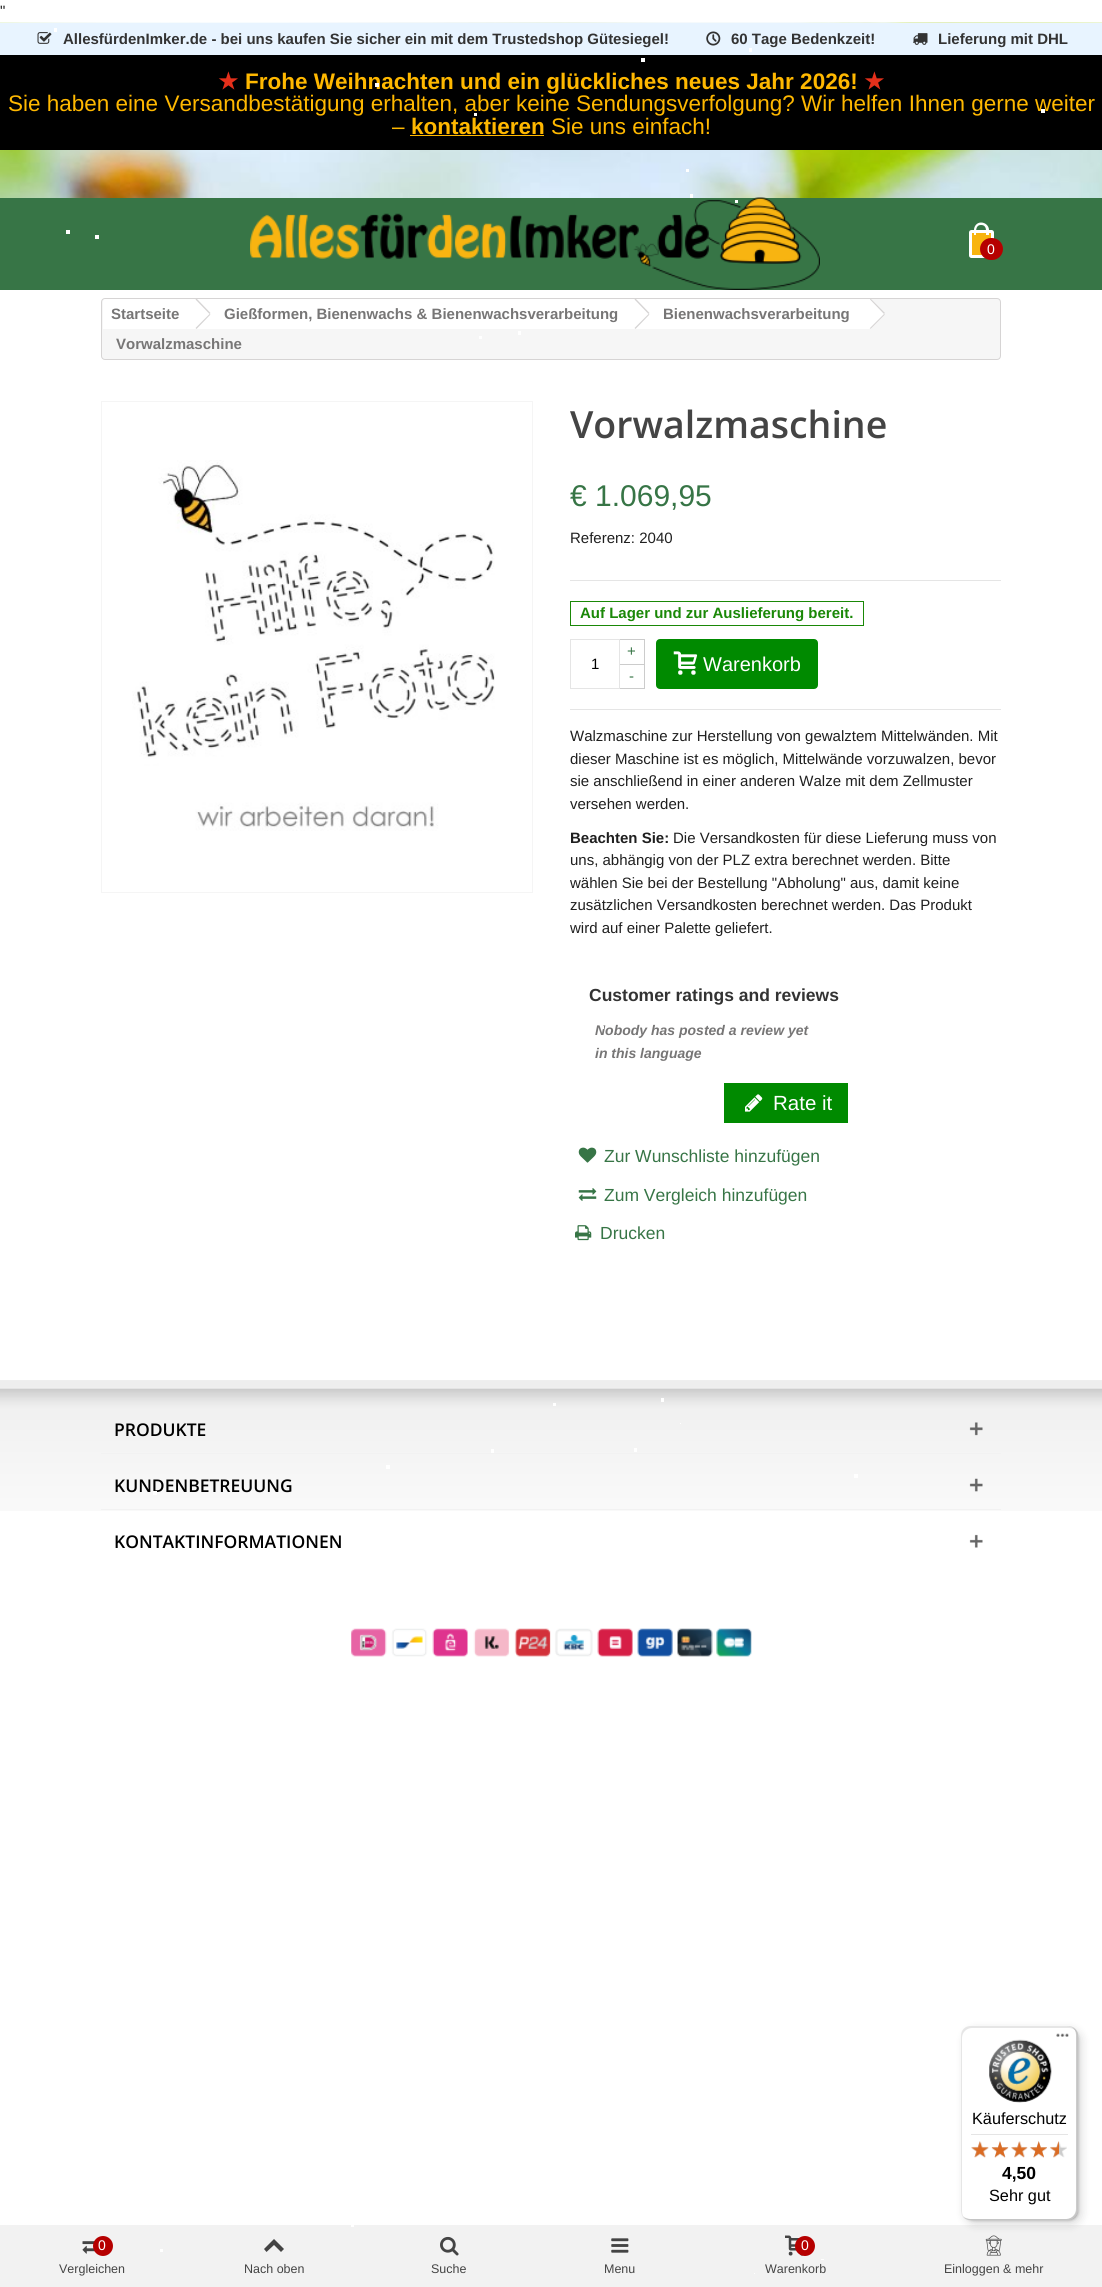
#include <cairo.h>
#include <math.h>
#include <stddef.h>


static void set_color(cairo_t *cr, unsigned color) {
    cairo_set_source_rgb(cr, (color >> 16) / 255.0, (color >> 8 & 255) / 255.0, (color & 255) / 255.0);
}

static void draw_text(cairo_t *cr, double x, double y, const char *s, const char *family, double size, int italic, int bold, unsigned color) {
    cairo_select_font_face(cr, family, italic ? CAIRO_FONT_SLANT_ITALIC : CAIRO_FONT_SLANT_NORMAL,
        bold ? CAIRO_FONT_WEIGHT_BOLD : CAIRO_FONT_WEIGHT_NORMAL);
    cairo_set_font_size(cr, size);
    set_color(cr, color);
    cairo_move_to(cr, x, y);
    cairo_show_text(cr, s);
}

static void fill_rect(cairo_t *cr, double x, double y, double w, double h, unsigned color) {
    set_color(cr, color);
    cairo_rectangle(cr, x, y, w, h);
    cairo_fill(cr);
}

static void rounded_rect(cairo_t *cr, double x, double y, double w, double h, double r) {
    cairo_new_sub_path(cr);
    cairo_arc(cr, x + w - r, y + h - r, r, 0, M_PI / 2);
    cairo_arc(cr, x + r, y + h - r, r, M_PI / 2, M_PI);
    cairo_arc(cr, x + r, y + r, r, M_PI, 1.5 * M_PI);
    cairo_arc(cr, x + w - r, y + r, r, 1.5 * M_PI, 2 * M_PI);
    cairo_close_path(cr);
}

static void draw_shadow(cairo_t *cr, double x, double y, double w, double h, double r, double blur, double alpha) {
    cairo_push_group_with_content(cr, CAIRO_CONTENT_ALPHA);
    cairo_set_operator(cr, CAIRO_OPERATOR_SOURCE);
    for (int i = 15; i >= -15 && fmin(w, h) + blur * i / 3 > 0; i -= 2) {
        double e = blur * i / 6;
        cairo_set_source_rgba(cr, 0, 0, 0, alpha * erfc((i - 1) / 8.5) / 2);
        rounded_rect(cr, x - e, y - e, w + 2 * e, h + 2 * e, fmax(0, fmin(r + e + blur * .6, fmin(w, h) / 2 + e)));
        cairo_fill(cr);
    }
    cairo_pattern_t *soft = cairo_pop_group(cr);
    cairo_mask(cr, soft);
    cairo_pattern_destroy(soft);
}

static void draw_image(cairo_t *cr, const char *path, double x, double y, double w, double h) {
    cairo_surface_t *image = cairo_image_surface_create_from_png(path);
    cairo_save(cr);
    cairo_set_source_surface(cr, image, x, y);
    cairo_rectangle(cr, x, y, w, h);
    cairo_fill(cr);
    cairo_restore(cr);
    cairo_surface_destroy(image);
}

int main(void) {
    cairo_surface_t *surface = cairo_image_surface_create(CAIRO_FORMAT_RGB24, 1102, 2287);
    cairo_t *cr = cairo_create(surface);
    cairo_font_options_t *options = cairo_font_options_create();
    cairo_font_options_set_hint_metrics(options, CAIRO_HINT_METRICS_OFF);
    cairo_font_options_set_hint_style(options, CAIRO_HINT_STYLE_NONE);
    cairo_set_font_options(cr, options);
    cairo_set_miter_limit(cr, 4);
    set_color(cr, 0xFFFFFF);
    cairo_paint(cr);
    draw_text(cr, 0, 16, "\"", "Liberation Sans", 15, 0, 0, 0x1F1F1F);
    draw_image(cr, "assets/img1.png", 0, 22, 1102, 176);
    fill_rect(cr, 0, 23, 1102, 32, 0xE8F4FF);
    fill_rect(cr, 54, 28, 3, 4, 0xFFFFFF);
    fill_rect(cr, 0, 55, 1102, 95, 0x000000);
    draw_image(cr, "assets/img2.png", 37, 32, 15, 12);
    draw_text(cr, 63, 44, "AllesfürdenImker.de - bei uns kaufen Sie sicher ein mit dem Trustedshop Gütesiegel!", "Liberation Sans", 15, 0, 1, 0x333333);
    draw_image(cr, "assets/img3.png", 706, 31, 15, 15);
    draw_text(cr, 731, 44, "60 Tage Bedenkzeit!", "Liberation Sans", 15, 0, 1, 0x333333);
    draw_image(cr, "assets/img4.png", 913, 33, 15, 12);
    draw_text(cr, 938, 44, "Lieferung mit DHL", "Liberation Sans", 15, 0, 1, 0x333333);
    draw_text(cr, 218, 89, "★", "DejaVu Sans", 22.5, 0, 1, 0xE6301B);
    draw_text(cr, 245, 89, "Frohe Weihnachten und ein glückliches neues Jahr 2026!", "Liberation Sans", 22.5, 0, 1, 0xFFB800);
    draw_text(cr, 864, 89, "★", "DejaVu Sans", 22.5, 0, 1, 0xE6301B);
    draw_text(cr, 8, 111, "Sie haben eine Versandbestätigung erhalten, aber keine Sendungsverfolgung? Wir helfen Ihnen gerne weiter", "Liberation Sans", 22.5, 0, 0, 0xFFB800);
    draw_text(cr, 392, 134, "–", "Liberation Sans", 22.5, 0, 0, 0xFFB800);
    draw_text(cr, 411, 134, "kontaktieren", "Liberation Sans", 22.5, 0, 1, 0xFFB800);
    fill_rect(cr, 410, 135, 134, 1, 0xFFB800);
    draw_text(cr, 551, 134, "Sie uns einfach!", "Liberation Sans", 22.5, 0, 0, 0xFFB800);
    fill_rect(cr, 0, 198, 1102, 92, 0x377546);
    draw_image(cr, "assets/img5.png", 250, 197, 570, 93);
    set_color(cr, 0xF8B40F);
    rounded_rect(cr, 970.5, 231.5, 22, 25, 1);
    cairo_fill_preserve(cr);
    set_color(cr, 0xFFFFFF);
    cairo_set_line_width(cr, 3);
    cairo_stroke(cr);
    cairo_set_fill_rule(cr, CAIRO_FILL_RULE_EVEN_ODD);
    cairo_new_path(cr);
    cairo_move_to(cr, 981, 222.5);
    cairo_curve_to(cr, 985.5, 222.5, 989, 226, 989, 230);
    cairo_line_to(cr, 989, 235);
    cairo_line_to(cr, 974, 235);
    cairo_line_to(cr, 974, 230);
    cairo_curve_to(cr, 974, 226, 977, 222.5, 981, 222.5);
    cairo_close_path(cr);
    cairo_move_to(cr, 981, 225);
    cairo_curve_to(cr, 987, 225, 986, 231, 986, 235);
    cairo_line_to(cr, 976, 235);
    cairo_curve_to(cr, 976, 231, 975.5, 225, 981, 225);
    cairo_close_path(cr);
    cairo_fill(cr);
    set_color(cr, 0xB60000);
    rounded_rect(cr, 981.5, 239.5, 20, 19, 9.5);
    cairo_fill_preserve(cr);
    cairo_stroke(cr);
    draw_text(cr, 987, 254, "0", "Liberation Sans", 14, 0, 0, 0xFFFFFF);
    set_color(cr, 0xF6F6F6);
    rounded_rect(cr, 101.5, 298.5, 899, 61, 3.5);
    cairo_fill_preserve(cr);
    set_color(cr, 0xD6D4D4);
    cairo_set_line_width(cr, 1);
    cairo_stroke(cr);
    set_color(cr, 0xFFFFFF);
    cairo_new_path(cr);
    cairo_move_to(cr, 105.5, 299);
    cairo_line_to(cr, 199, 299);
    cairo_line_to(cr, 199, 329);
    cairo_line_to(cr, 103, 329);
    cairo_line_to(cr, 103, 301.5);
    cairo_curve_to(cr, 103, 300, 104, 299, 105.5, 299);
    cairo_close_path(cr);
    cairo_fill(cr);
    draw_text(cr, 111, 319, "Startseite", "Liberation Sans", 15, 0, 1, 0x777676);
    set_color(cr, 0xFFFFFF);
    cairo_set_fill_rule(cr, CAIRO_FILL_RULE_WINDING);
    cairo_new_path(cr);
    cairo_move_to(cr, 201.5, 299.5);
    cairo_line_to(cr, 201, 299);
    cairo_line_to(cr, 198.5, 299);
    cairo_line_to(cr, 198, 299.5);
    cairo_line_to(cr, 185.5, 312);
    cairo_curve_to(cr, 184.5, 313, 184.5, 314.5, 185.5, 315.5);
    cairo_line_to(cr, 198, 328);
    cairo_curve_to(cr, 199, 329, 200.5, 329, 201.5, 328);
    cairo_line_to(cr, 214, 315.5);
    cairo_curve_to(cr, 214.5, 314.5, 214.5, 313, 214, 312);
    cairo_close_path(cr);
    cairo_fill(cr);
    fill_rect(cr, 199, 299, 437, 30, 0xFFFFFF);
    set_color(cr, 0xD6D4D4);
    cairo_new_path(cr);
    cairo_move_to(cr, 196.5, 298.5);
    cairo_line_to(cr, 210.5, 313);
    cairo_line_to(cr, 209.5, 314);
    cairo_line_to(cr, 195.5, 299.5);
    cairo_close_path(cr);
    cairo_move_to(cr, 209.5, 314);
    cairo_line_to(cr, 210.5, 314.5);
    cairo_line_to(cr, 196.5, 329);
    cairo_line_to(cr, 195.5, 328);
    cairo_close_path(cr);
    cairo_fill(cr);
    draw_text(cr, 224, 319, "Gießformen, Bienenwachs & Bienenwachsverarbeitung", "Liberation Sans", 15, 0, 1, 0x777676);
    set_color(cr, 0xFFFFFF);
    cairo_new_path(cr);
    cairo_move_to(cr, 640.5, 299.5);
    cairo_curve_to(cr, 640, 299, 639.5, 299, 639, 299);
    cairo_curve_to(cr, 635.5, 299, 635.5, 300.5, 632.5, 303.5);
    cairo_line_to(cr, 628.5, 308);
    cairo_curve_to(cr, 621, 315.5, 622.5, 313.5, 630.5, 322);
    cairo_line_to(cr, 637, 328.5);
    cairo_curve_to(cr, 640, 330, 643, 325.5, 644.5, 324);
    cairo_line_to(cr, 648.5, 319.5);
    cairo_curve_to(cr, 650, 318, 655, 314.5, 652.5, 312);
    cairo_close_path(cr);
    cairo_fill(cr);
    fill_rect(cr, 636, 299, 233, 30, 0xFFFFFF);
    set_color(cr, 0xD6D4D4);
    cairo_new_path(cr);
    cairo_move_to(cr, 635.5, 298.5);
    cairo_line_to(cr, 649.5, 313);
    cairo_line_to(cr, 648.5, 314);
    cairo_line_to(cr, 634.5, 299.5);
    cairo_close_path(cr);
    cairo_move_to(cr, 648.5, 314);
    cairo_line_to(cr, 649.5, 314.5);
    cairo_line_to(cr, 635.5, 329);
    cairo_line_to(cr, 634.5, 328);
    cairo_close_path(cr);
    cairo_fill(cr);
    draw_text(cr, 663, 319, "Bienenwachsverarbeitung", "Liberation Sans", 15, 0, 1, 0x777676);
    set_color(cr, 0xFFFFFF);
    cairo_new_path(cr);
    cairo_move_to(cr, 871.5, 299.5);
    cairo_line_to(cr, 871, 299);
    cairo_line_to(cr, 868.5, 299);
    cairo_line_to(cr, 868, 299.5);
    cairo_line_to(cr, 855.5, 312);
    cairo_curve_to(cr, 854.5, 313, 854.5, 314.5, 855.5, 315.5);
    cairo_line_to(cr, 868, 328);
    cairo_curve_to(cr, 869, 329, 870.5, 329, 871.5, 328);
    cairo_line_to(cr, 884, 315.5);
    cairo_curve_to(cr, 885, 314.5, 885, 313, 884, 312);
    cairo_close_path(cr);
    cairo_fill(cr);
    set_color(cr, 0xD6D4D4);
    cairo_new_path(cr);
    cairo_move_to(cr, 870.5, 298.5);
    cairo_line_to(cr, 885, 313);
    cairo_line_to(cr, 884, 314);
    cairo_line_to(cr, 870, 299.5);
    cairo_close_path(cr);
    cairo_move_to(cr, 884, 314);
    cairo_line_to(cr, 885, 314.5);
    cairo_line_to(cr, 870.5, 329);
    cairo_line_to(cr, 870, 328);
    cairo_close_path(cr);
    cairo_fill(cr);
    draw_text(cr, 116, 349, "Vorwalzmaschine", "Liberation Sans", 15, 0, 1, 0x777676);
    cairo_rectangle(cr, 101.5, 401.5, 431, 491);
    set_color(cr, 0xF5F5F5);
    cairo_stroke(cr);
    draw_image(cr, "assets/img6.png", 132, 460, 363, 371);
    draw_text(cr, 570, 438, "Vorwalzmaschine", "Open Sans SemiBold", 37.5, 0, 0, 0x444444);
    draw_text(cr, 570, 506, "€ 1.069,95", "Liberation Sans", 30, 0, 0, 0x377546);
    draw_text(cr, 570, 543, "Referenz: 2040", "Liberation Sans", 15, 0, 0, 0x1F1F1F);
    fill_rect(cr, 570, 580, 431, 1, 0xE5E5E5);
    cairo_rectangle(cr, 570.5, 601.5, 293, 24);
    set_color(cr, 0x1A8807);
    cairo_stroke(cr);
    draw_text(cr, 580, 618, "Auf Lager und zur Auslieferung bereit.", "Liberation Sans", 15, 0, 1, 0x1A8807);
    fill_rect(cr, 570, 709, 431, 1, 0xE5E5E5);
    fill_rect(cr, 620, 639, 25, 1, 0xCCCCCC);
    fill_rect(cr, 644, 639, 1, 25, 0xCCCCCC);
    draw_text(cr, 627, 656, "+", "Liberation Sans", 15, 0, 0, 0x377546);
    cairo_rectangle(cr, 570.5, 639.5, 49, 49);
    set_color(cr, 0xE5E5E5);
    cairo_stroke(cr);
    draw_text(cr, 591, 669, "1", "Liberation Sans", 15, 0, 0, 0x000000);
    fill_rect(cr, 620, 664, 25, 1, 0xCCCCCC);
    fill_rect(cr, 644, 664, 1, 25, 0xCCCCCC);
    fill_rect(cr, 620, 688, 25, 1, 0xCCCCCC);
    draw_text(cr, 629, 681, "-", "Liberation Sans", 15, 0, 0, 0x377546);
    set_color(cr, 0x008A00);
    rounded_rect(cr, 657.5, 640.5, 159, 47, 2.5);
    cairo_fill_preserve(cr);
    cairo_set_line_width(cr, 3);
    cairo_stroke(cr);
    draw_image(cr, "assets/img7.png", 673, 651, 25, 24);
    draw_text(cr, 703, 671, "Warenkorb", "Liberation Sans", 20, 0, 0, 0xFFFFFF);
    draw_text(cr, 570, 741, "Walzmaschine zur Herstellung von gewalztem Mittelwänden. Mit", "Liberation Sans", 15, 0, 0, 0x1F1F1F);
    draw_text(cr, 570, 764, "dieser Maschine ist es möglich, Mittelwände vorzuwalzen, bevor", "Liberation Sans", 15, 0, 0, 0x1F1F1F);
    draw_text(cr, 570, 786, "sie anschließend in einer anderen Walze mit dem Zellmuster", "Liberation Sans", 15, 0, 0, 0x1F1F1F);
    draw_text(cr, 570, 809, "versehen werden.", "Liberation Sans", 15, 0, 0, 0x1F1F1F);
    draw_text(cr, 570, 843, "Beachten Sie:", "Liberation Sans", 15, 0, 1, 0x1F1F1F);
    draw_text(cr, 673, 843, "Die Versandkosten für diese Lieferung muss von", "Liberation Sans", 15, 0, 0, 0x1F1F1F);
    draw_text(cr, 570, 865, "uns, abhängig von der PLZ extra berechnet werden. Bitte", "Liberation Sans", 15, 0, 0, 0x1F1F1F);
    draw_text(cr, 570, 888, "wählen Sie bei der Bestellung \"Abholung\" aus, damit keine", "Liberation Sans", 15, 0, 0, 0x1F1F1F);
    draw_text(cr, 570, 910, "zusätzlichen Versandkosten berechnet werden. Das Produkt", "Liberation Sans", 15, 0, 0, 0x1F1F1F);
    draw_text(cr, 570, 933, "wird auf einer Palette geliefert.", "Liberation Sans", 15, 0, 0, 0x1F1F1F);
    draw_text(cr, 589, 1001, "Customer ratings and reviews", "Liberation Sans", 17.5, 0, 1, 0x333333);
    draw_text(cr, 595, 1035, "Nobody has posted a review yet", "Liberation Sans", 14, 1, 1, 0x777676);
    draw_text(cr, 595, 1058, "in this language", "Liberation Sans", 14, 1, 1, 0x777676);
    fill_rect(cr, 724, 1083, 124, 40, 0x008A00);
    draw_image(cr, "assets/img8.png", 745, 1094, 18, 18);
    draw_text(cr, 773, 1110, "Rate it", "Liberation Sans", 20.5, 0, 0, 0xFFFFFF);
    draw_image(cr, "assets/img9.png", 578, 1147, 19, 16);
    draw_text(cr, 604, 1162, "Zur Wunschliste hinzufügen", "Liberation Sans", 17.5, 0, 0, 0x377546);
    draw_image(cr, "assets/img10.png", 578, 1188, 19, 13);
    draw_text(cr, 604, 1201, "Zum Vergleich hinzufügen", "Liberation Sans", 17.5, 0, 0, 0x377546);
    draw_image(cr, "assets/img11.png", 575, 1225, 17, 16);
    draw_text(cr, 600, 1239, "Drucken", "Liberation Sans", 17.5, 0, 0, 0x377546);
    draw_image(cr, "assets/img12.png", 0, 1380, 1102, 131);
    fill_rect(cr, 101, 1453, 900, 1, 0xF2F2F2);
    draw_text(cr, 114, 1436, "PRODUKTE", "Open Sans SemiBold", 17.5, 0, 0, 0x000000);
    draw_image(cr, "assets/img13.png", 969, 1422, 14, 14);
    fill_rect(cr, 101, 1509, 900, 1, 0xF2F2F2);
    draw_text(cr, 114, 1492, "KUNDENBETREUUNG", "Open Sans SemiBold", 17.5, 0, 0, 0x000000);
    draw_image(cr, "assets/img14.png", 969, 1478, 14, 14);
    draw_text(cr, 114, 1548, "KONTAKTINFORMATIONEN", "Open Sans SemiBold", 17.5, 0, 0, 0x000000);
    draw_image(cr, "assets/img15.png", 969, 1534, 14, 14);
    draw_image(cr, "assets/img16.png", 351, 1628, 401, 29);
    fill_rect(cr, 0, 2225, 1102, 62, 0xF2F2F2);
    draw_image(cr, "assets/img17.png", 82, 2241, 13, 13);
    set_color(cr, 0xB60000);
    cairo_arc(cr, 103, 2246, 10, 0, 2 * M_PI);
    cairo_fill(cr);
    draw_text(cr, 98, 2250, "0", "Liberation Sans", 14, 0, 0, 0xFFFFFF);
    draw_text(cr, 59, 2273, "Vergleichen", "Liberation Sans", 12.5, 0, 0, 0x444444);
    cairo_new_path(cr);
    cairo_move_to(cr, 264, 2249);
    cairo_line_to(cr, 274, 2239);
    cairo_line_to(cr, 284, 2249);
    cairo_line_to(cr, 281, 2252);
    cairo_line_to(cr, 274, 2245);
    cairo_line_to(cr, 266.5, 2252);
    cairo_close_path(cr);
    cairo_fill(cr);
    draw_text(cr, 244, 2273, "Nach oben", "Liberation Sans", 12.5, 0, 0, 0x444444);
    draw_image(cr, "assets/img18.png", 440, 2236, 19, 20);
    draw_text(cr, 431, 2273, "Suche", "Liberation Sans", 12.5, 0, 0, 0x444444);
    draw_image(cr, "assets/img19.png", 611, 2238, 18, 15);
    draw_text(cr, 604, 2273, "Menu", "Liberation Sans", 12.5, 0, 0, 0x444444);
    draw_image(cr, "assets/img20.png", 785, 2235, 19, 21);
    set_color(cr, 0xB60000);
    cairo_arc(cr, 805, 2246, 10, 0, 2 * M_PI);
    cairo_fill(cr);
    draw_text(cr, 801, 2250, "0", "Liberation Sans", 14, 0, 0, 0xFFFFFF);
    draw_text(cr, 765, 2273, "Warenkorb", "Liberation Sans", 12.5, 0, 0, 0x444444);
    draw_image(cr, "assets/img21.png", 985, 2235, 17, 21);
    draw_text(cr, 944, 2273, "Einloggen & mehr", "Liberation Sans", 12.5, 0, 0, 0x444444);
    fill_rect(cr, 749, 48, 3, 4, 0xFFFFFF);
    fill_rect(cr, 641, 58, 4, 4, 0xFFFFFF);
    fill_rect(cr, 375, 83, 4, 4, 0xFFFFFF);
    fill_rect(cr, 1041, 109, 4, 4, 0xFFFFFF);
    fill_rect(cr, 474, 113, 3, 3, 0xFFFFFF);
    fill_rect(cr, 686, 169, 3, 3, 0xFFFFFF);
    fill_rect(cr, 690, 194, 3, 4, 0xFFFFFF);
    fill_rect(cr, 735, 200, 3, 3, 0xFFFFFF);
    fill_rect(cr, 66, 230, 4, 4, 0xFFFFFF);
    fill_rect(cr, 95, 235, 4, 4, 0xFFFFFF);
    fill_rect(cr, 518, 331, 3, 4, 0xFFFFFF);
    fill_rect(cr, 479, 336, 3, 3, 0xFFFFFF);
    fill_rect(cr, 185, 476, 1, 3, 0xFFFFFF);
    fill_rect(cr, 356, 594, 3, 4, 0xFFFFFF);
    fill_rect(cr, 313, 669, 4, 4, 0xFFFFFF);
    fill_rect(cr, 245, 829, 3, 2, 0xFFFFFF);
    fill_rect(cr, 915, 833, 1, 3, 0xFFFFFF);
    fill_rect(cr, 601, 1026, 3, 3, 0xFFFFFF);
    fill_rect(cr, 661, 1398, 3, 4, 0xFFFFFF);
    fill_rect(cr, 553, 1403, 3, 3, 0xFFFFFF);
    fill_rect(cr, 680, 1423, 1, 1, 0xFFFFFF);
    fill_rect(cr, 491, 1449, 3, 4, 0xFFFFFF);
    fill_rect(cr, 634, 1448, 3, 4, 0xFFFFFF);
    fill_rect(cr, 386, 1465, 4, 4, 0xFFFFFF);
    fill_rect(cr, 854, 1474, 4, 4, 0xFFFFFF);
    fill_rect(cr, 153, 1491, 4, 4, 0xFFFFFF);
    set_color(cr, 0x000000);
    draw_shadow(cr, 965, 2030, 116, 194, 10, 5, 0.15);
    draw_shadow(cr, 963, 2028, 116, 193, 10, 1, 0.15);
    set_color(cr, 0xFFFFFF);
    rounded_rect(cr, 961, 2026, 117, 194, 10);
    cairo_fill(cr);
    cairo_set_source_rgba(cr, 0, 0, 0, 0.1);
    cairo_new_path(cr);
    cairo_move_to(cr, 972, 2028);
    cairo_line_to(cr, 1069, 2028);
    cairo_curve_to(cr, 1072, 2028, 1076, 2030, 1077, 2033);
    cairo_curve_to(cr, 1076, 2029, 1072, 2026, 1068, 2026);
    cairo_line_to(cr, 971, 2026);
    cairo_curve_to(cr, 965, 2026, 961, 2030, 961, 2036);
    cairo_line_to(cr, 961, 2210);
    cairo_curve_to(cr, 961, 2213, 962, 2216, 964, 2218);
    cairo_curve_to(cr, 963, 2216, 962, 2214, 962, 2211);
    cairo_line_to(cr, 962, 2038);
    cairo_curve_to(cr, 962, 2032, 967, 2028, 972, 2028);
    cairo_close_path(cr);
    cairo_fill(cr);
    cairo_set_source_rgba(cr, 0, 0, 0, 0.2);
    cairo_new_path(cr);
    cairo_move_to(cr, 963, 2217);
    cairo_curve_to(cr, 965, 2219, 968, 2220, 971, 2220);
    cairo_line_to(cr, 1068, 2220);
    cairo_curve_to(cr, 1074, 2220, 1078, 2216, 1078, 2210);
    cairo_line_to(cr, 1078, 2036);
    cairo_curve_to(cr, 1078, 2032, 1076, 2029, 1072, 2027);
    cairo_curve_to(cr, 1075, 2029, 1076, 2032, 1076, 2035);
    cairo_line_to(cr, 1076, 2209);
    cairo_curve_to(cr, 1076, 2214, 1072, 2219, 1066, 2219);
    cairo_line_to(cr, 970, 2219);
    cairo_curve_to(cr, 967, 2219, 965, 2218, 963, 2217);
    cairo_close_path(cr);
    cairo_fill(cr);
    cairo_set_source_rgba(cr, 0.196, 0.196, 0.196, 0.2);
    cairo_new_path(cr);
    cairo_move_to(cr, 963, 2216);
    cairo_curve_to(cr, 965, 2219, 968, 2220, 971, 2220);
    cairo_line_to(cr, 1068, 2220);
    cairo_curve_to(cr, 1074, 2220, 1078, 2216, 1078, 2210);
    cairo_line_to(cr, 1078, 2036);
    cairo_curve_to(cr, 1078, 2030, 1074, 2026, 1068, 2026);
    cairo_line_to(cr, 1067, 2026);
    cairo_curve_to(cr, 1072, 2026, 1077, 2030, 1077, 2036);
    cairo_line_to(cr, 1077, 2209);
    cairo_curve_to(cr, 1077, 2215, 1072, 2219, 1067, 2219);
    cairo_line_to(cr, 970, 2219);
    cairo_curve_to(cr, 968, 2219, 965, 2218, 963, 2216);
    cairo_close_path(cr);
    cairo_fill(cr);
    cairo_set_source_rgba(cr, 1, 1, 1, 0.3);
    cairo_new_path(cr);
    cairo_move_to(cr, 1077, 2036);
    cairo_curve_to(cr, 1077, 2030, 1072, 2026, 1067, 2026);
    cairo_line_to(cr, 1068, 2026);
    cairo_curve_to(cr, 1074, 2026, 1078, 2030, 1078, 2036);
    cairo_line_to(cr, 1078, 2210);
    cairo_curve_to(cr, 1078, 2216, 1074, 2220, 1068, 2220);
    cairo_line_to(cr, 971, 2220);
    cairo_curve_to(cr, 965, 2220, 961, 2216, 961, 2210);
    cairo_line_to(cr, 961, 2209);
    cairo_curve_to(cr, 961, 2215, 965, 2219, 971, 2219);
    cairo_line_to(cr, 1067, 2219);
    cairo_curve_to(cr, 1072, 2219, 1077, 2215, 1077, 2209);
    cairo_close_path(cr);
    cairo_fill(cr);
    draw_image(cr, "assets/img22.png", 1056, 2033, 13, 4);
    draw_image(cr, "assets/img23.png", 989, 2039, 63, 64);
    draw_text(cr, 972, 2124, "Käuferschutz", "Liberation Sans", 16.25, 0, 0, 0x000000);
    fill_rect(cr, 971, 2134, 97, 1, 0xE5E5E5);
    draw_image(cr, "assets/img24.png", 971, 2141, 18, 16);
    draw_image(cr, "assets/img25.png", 992, 2141, 16, 17);
    draw_image(cr, "assets/img26.png", 1011, 2141, 16, 16);
    draw_image(cr, "assets/img27.png", 1030, 2141, 17, 17);
    draw_image(cr, "assets/img28.png", 1050, 2141, 17, 17);
    draw_image(cr, "assets/img29.png", 971, 2141, 18, 17);
    draw_image(cr, "assets/img30.png", 991, 2141, 18, 17);
    draw_image(cr, "assets/img31.png", 1011, 2141, 17, 17);
    draw_image(cr, "assets/img32.png", 1030, 2141, 17, 17);
    draw_image(cr, "assets/img33.png", 1050, 2141, 9, 17);
    draw_text(cr, 1002, 2179, "4,50", "Liberation Sans", 17.5, 0, 1, 0x000000);
    draw_text(cr, 989, 2201, "Sehr gut", "Liberation Sans", 16.25, 0, 0, 0x000000);
    fill_rect(cr, 351, 2225, 3, 2, 0xFFFFFF);
    fill_rect(cr, 160, 2249, 3, 3, 0xFFFFFF);
    fill_rect(cr, 821, 2259, 3, 1, 0xFFFFFF);
    fill_rect(cr, 754, 2273, 1, 1, 0xFFFFFF);
    cairo_surface_write_to_png(surface, "output.png");
    cairo_font_options_destroy(options);
    cairo_destroy(cr);
    cairo_surface_destroy(surface);
    return 0;
}
